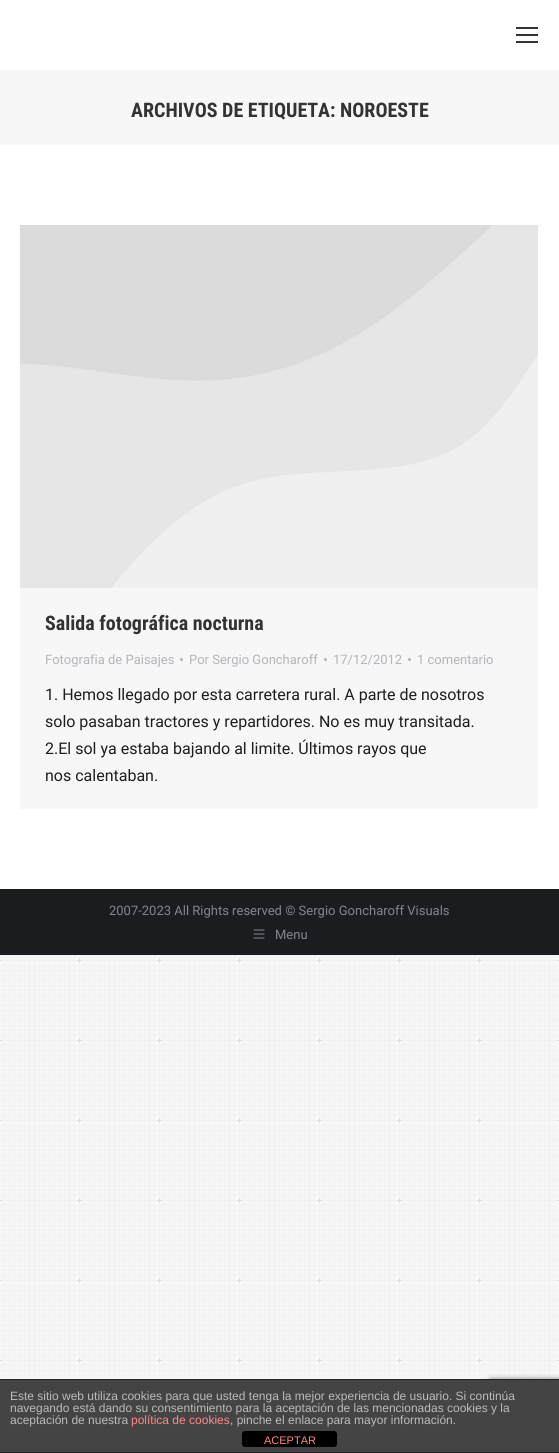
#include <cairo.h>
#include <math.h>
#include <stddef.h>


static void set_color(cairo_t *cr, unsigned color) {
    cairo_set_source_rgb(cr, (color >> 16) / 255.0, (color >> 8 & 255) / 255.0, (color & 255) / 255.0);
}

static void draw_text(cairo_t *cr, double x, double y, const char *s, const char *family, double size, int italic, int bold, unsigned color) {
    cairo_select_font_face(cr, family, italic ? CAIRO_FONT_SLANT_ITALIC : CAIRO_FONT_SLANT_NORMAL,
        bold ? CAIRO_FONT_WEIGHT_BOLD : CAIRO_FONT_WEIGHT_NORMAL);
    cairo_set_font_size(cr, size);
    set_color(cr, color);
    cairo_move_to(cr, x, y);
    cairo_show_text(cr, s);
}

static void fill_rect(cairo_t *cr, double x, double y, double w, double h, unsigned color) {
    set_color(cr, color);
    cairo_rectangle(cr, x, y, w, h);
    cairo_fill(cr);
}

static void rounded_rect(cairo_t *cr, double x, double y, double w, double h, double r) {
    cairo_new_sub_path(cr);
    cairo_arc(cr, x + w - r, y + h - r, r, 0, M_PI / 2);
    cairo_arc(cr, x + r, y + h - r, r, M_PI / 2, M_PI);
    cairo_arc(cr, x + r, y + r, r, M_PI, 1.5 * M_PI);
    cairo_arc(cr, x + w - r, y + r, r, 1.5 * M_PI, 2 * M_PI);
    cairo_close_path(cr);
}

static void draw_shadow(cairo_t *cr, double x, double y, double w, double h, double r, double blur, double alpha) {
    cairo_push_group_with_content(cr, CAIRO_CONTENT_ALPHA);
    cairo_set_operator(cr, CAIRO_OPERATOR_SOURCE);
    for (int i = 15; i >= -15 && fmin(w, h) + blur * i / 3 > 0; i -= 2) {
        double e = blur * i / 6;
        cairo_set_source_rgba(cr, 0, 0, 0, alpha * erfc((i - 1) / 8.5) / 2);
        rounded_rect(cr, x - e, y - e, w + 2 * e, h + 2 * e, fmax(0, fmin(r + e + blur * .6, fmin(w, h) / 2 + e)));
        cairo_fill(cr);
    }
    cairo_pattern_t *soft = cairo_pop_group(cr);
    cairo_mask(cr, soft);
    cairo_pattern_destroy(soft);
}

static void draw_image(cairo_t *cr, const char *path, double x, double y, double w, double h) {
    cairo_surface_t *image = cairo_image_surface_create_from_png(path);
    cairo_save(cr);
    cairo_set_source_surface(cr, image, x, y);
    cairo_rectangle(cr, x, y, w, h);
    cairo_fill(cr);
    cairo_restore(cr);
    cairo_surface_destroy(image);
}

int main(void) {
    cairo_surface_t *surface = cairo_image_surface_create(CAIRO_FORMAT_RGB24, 559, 1453);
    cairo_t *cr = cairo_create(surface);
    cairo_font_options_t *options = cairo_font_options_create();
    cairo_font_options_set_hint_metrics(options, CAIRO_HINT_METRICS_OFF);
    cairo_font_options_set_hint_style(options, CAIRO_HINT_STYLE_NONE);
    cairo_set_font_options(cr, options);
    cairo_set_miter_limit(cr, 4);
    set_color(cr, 0xF7F7F7);
    cairo_paint(cr);
    draw_image(cr, "assets/img1.png", 0, 955, 559, 424);
    fill_rect(cr, 0, 0, 559, 889, 0xFFFFFF);
    fill_rect(cr, 516, 27, 22, 2, 0x333333);
    fill_rect(cr, 516, 34, 22, 2, 0x333333);
    fill_rect(cr, 516, 41, 22, 2, 0x333333);
    fill_rect(cr, 0, 70, 559, 75, 0xF7F7F7);
    draw_text(cr, 131, 117, "ARCHIVOS DE ETIQUETA: NOROESTE", "Roboto Condensed", 20, 0, 1, 0x333333);
    fill_rect(cr, 20, 587, 518, 222, 0xF7F7F7);
    draw_image(cr, "assets/img2.png", 20, 225, 518, 363);
    draw_text(cr, 45, 630, "Salida fotográfica nocturna", "Roboto Condensed", 20, 0, 1, 0x333333);
    draw_text(cr, 45, 664, "Fotografia de Paisajes", "Roboto", 13, 0, 0, 0xB4B5BB);
    cairo_new_path(cr);
    cairo_arc(cr, 181.5, 659.5, 1.5, 0, 2 * M_PI);
    cairo_fill(cr);
    draw_text(cr, 189, 664, "Por Sergio Goncharoff", "Roboto", 13, 0, 0, 0xB4B5BB);
    cairo_new_path(cr);
    cairo_arc(cr, 325.5, 659.5, 1.5, 0, 2 * M_PI);
    cairo_fill(cr);
    draw_text(cr, 333, 664, "17/12/2012", "Roboto", 13, 0, 0, 0xB4B5BB);
    cairo_new_path(cr);
    cairo_arc(cr, 409.5, 659.5, 1.5, 0, 2 * M_PI);
    cairo_fill(cr);
    draw_text(cr, 417, 664, "1 comentario", "Roboto", 13, 0, 0, 0xB4B5BB);
    draw_text(cr, 45, 700, "1. Hemos llegado por esta carretera rural. A parte de nosotros", "Roboto", 16, 0, 0, 0x1E1E1E);
    draw_text(cr, 45, 727, "solo pasaban tractores y repartidores. No es muy transitada.", "Roboto", 16, 0, 0, 0x1E1E1E);
    draw_text(cr, 45, 754, "2.El sol ya estaba bajando al limite. Últimos rayos que", "Roboto", 16, 0, 0, 0x1E1E1E);
    draw_text(cr, 45, 781, "nos calentaban.", "Roboto", 16, 0, 0, 0x1E1E1E);
    fill_rect(cr, 0, 889, 559, 66, 0x1A1C20);
    draw_text(cr, 109, 915, "2007-2023 All Rights reserved © Sergio Goncharoff Visuals", "Roboto", 13, 0, 0, 0x85868C);
    draw_image(cr, "assets/img3.png", 253, 929, 12, 10);
    draw_text(cr, 275, 939, "Menu", "Roboto", 13, 0, 0, 0x85868C);
    set_color(cr, 0x808080);
    draw_shadow(cr, 489, 1379, 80, 60, 2, 2.5, 1);
    fill_rect(cr, 0, 1380, 559, 72, 0x444444);
    fill_rect(cr, 0, 1379, 559, 1, 0x222222);
    fill_rect(cr, 0, 1452, 559, 1, 0x222222);
    draw_text(cr, 10, 1400, "Este sitio web utiliza cookies para que usted tenga la mejor experiencia de usuario. Si continúa", "Liberation Sans", 12, 0, 0, 0xBBBBBB);
    draw_text(cr, 10, 1412, "navegando está dando su consentimiento para la aceptación de las mencionadas cookies y la", "Liberation Sans", 12, 0, 0, 0xBBBBBB);
    draw_text(cr, 10, 1424, "aceptación de nuestra", "Liberation Sans", 12, 0, 0, 0xBBBBBB);
    draw_text(cr, 131, 1424, "política de cookies", "Liberation Sans", 12, 0, 0, 0xFF8888);
    draw_text(cr, 230, 1424, ", pinche el enlace para mayor información.", "Liberation Sans", 12, 0, 0, 0xBBBBBB);
    set_color(cr, 0x000000);
    rounded_rect(cr, 242, 1431, 95, 16, 3);
    cairo_fill(cr);
    draw_text(cr, 264, 1444, "ACEPTAR", "Liberation Sans", 11, 0, 0, 0xFF8888);
    cairo_surface_write_to_png(surface, "output.png");
    cairo_font_options_destroy(options);
    cairo_destroy(cr);
    cairo_surface_destroy(surface);
    return 0;
}
